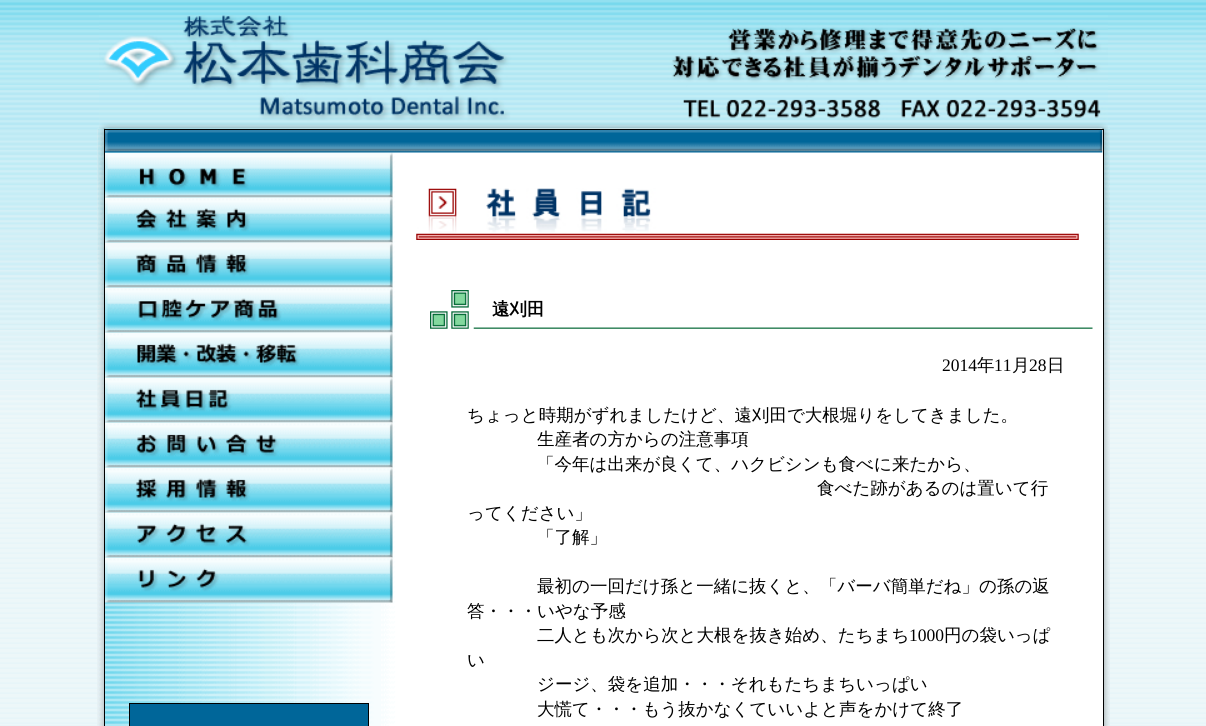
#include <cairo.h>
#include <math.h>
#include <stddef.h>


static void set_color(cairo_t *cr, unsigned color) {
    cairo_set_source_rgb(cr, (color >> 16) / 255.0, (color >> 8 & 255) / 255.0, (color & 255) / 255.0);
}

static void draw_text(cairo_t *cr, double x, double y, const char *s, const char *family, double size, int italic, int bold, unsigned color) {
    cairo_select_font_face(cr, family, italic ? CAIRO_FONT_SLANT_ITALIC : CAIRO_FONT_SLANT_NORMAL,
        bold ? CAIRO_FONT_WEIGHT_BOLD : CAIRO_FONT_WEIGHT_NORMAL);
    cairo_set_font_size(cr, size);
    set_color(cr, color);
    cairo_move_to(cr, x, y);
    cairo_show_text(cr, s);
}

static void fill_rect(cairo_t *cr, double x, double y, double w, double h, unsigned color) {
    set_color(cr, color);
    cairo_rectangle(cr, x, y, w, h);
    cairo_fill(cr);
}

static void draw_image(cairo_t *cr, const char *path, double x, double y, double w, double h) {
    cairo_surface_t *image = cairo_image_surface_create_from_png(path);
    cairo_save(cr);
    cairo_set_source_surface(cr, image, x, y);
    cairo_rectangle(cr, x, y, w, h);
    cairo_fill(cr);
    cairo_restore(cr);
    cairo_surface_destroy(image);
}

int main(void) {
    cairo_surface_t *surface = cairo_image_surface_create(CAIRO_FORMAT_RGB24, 1206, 726);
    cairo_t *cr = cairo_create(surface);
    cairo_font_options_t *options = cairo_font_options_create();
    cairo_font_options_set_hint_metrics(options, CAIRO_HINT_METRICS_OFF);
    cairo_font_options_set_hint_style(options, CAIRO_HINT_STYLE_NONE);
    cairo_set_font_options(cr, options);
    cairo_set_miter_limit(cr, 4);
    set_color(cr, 0xFFFFFF);
    cairo_paint(cr);
    draw_image(cr, "assets/img1.png", 0, 724, 1206, 2);
    draw_image(cr, "assets/img2.png", 0, 0, 1206, 724);
    draw_image(cr, "assets/img3.png", 99, 15, 1009, 114);
    draw_image(cr, "assets/img4.png", 97, 128, 1013, 598);
    draw_image(cr, "assets/img5.png", 97, 128, 8, 598);
    draw_image(cr, "assets/img6.png", 1104, 129, 6, 597);
    fill_rect(cr, 1102, 130, 1, 596, 0xFFFFFF);
    draw_image(cr, "assets/img7.png", 105, 128, 998, 598);
    cairo_rectangle(cr, 104.5, 129.5, 999, 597);
    set_color(cr, 0x000000);
    cairo_set_line_width(cr, 1);
    cairo_stroke(cr);
    draw_image(cr, "assets/img9.png", 105, 152, 288, 46);
    draw_image(cr, "assets/img8.png", 105, 130, 998, 23);
    draw_image(cr, "assets/img10.png", 105, 197, 288, 46);
    draw_image(cr, "assets/img11.png", 105, 242, 288, 46);
    draw_image(cr, "assets/img12.png", 105, 287, 288, 46);
    draw_image(cr, "assets/img13.png", 105, 332, 288, 46);
    draw_image(cr, "assets/img14.png", 105, 377, 288, 46);
    draw_image(cr, "assets/img15.png", 105, 422, 288, 46);
    draw_image(cr, "assets/img16.png", 105, 467, 288, 46);
    draw_image(cr, "assets/img17.png", 105, 512, 288, 46);
    draw_image(cr, "assets/img18.png", 105, 557, 288, 46);
    set_color(cr, 0x006699);
    cairo_rectangle(cr, 129.5, 703.5, 239, 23);
    cairo_fill_preserve(cr);
    set_color(cr, 0x000000);
    cairo_stroke(cr);
    draw_image(cr, "assets/img19.png", 416, 188, 663, 52);
    draw_image(cr, "assets/img20.png", 430, 290, 663, 39);
    draw_text(cr, 492, 315, "遠刈田", "WenQuanYi Zen Hei", 17.5, 0, 1, 0x000000);
    draw_text(cr, 942, 371, "2014", "Liberation Serif", 17.5, 0, 0, 0x000000);
    draw_text(cr, 977, 371, "年", "WenQuanYi Zen Hei Medium", 17.5, 0, 0, 0x000000);
    draw_text(cr, 994, 371, "11", "Liberation Serif", 17.5, 0, 0, 0x000000);
    draw_text(cr, 1012, 371, "月", "WenQuanYi Zen Hei Medium", 17.5, 0, 0, 0x000000);
    draw_text(cr, 1029, 371, "28", "Liberation Serif", 17.5, 0, 0, 0x000000);
    draw_text(cr, 1047, 371, "日", "WenQuanYi Zen Hei Medium", 17.5, 0, 0, 0x000000);
    draw_text(cr, 467, 421, "ちょっと時期がずれましたけど、遠刈田で大根堀りをしてきました。", "WenQuanYi Zen Hei Medium", 17.5, 0, 0, 0x000000);
    draw_text(cr, 537, 445, "生産者の方からの注意事項", "WenQuanYi Zen Hei Medium", 17.5, 0, 0, 0x000000);
    draw_text(cr, 537, 470, "「今年は出来が良くて、ハクビシンも食べに来たから、", "WenQuanYi Zen Hei Medium", 17.5, 0, 0, 0x000000);
    draw_text(cr, 817, 494, "食べた跡があるのは置いて行", "WenQuanYi Zen Hei Medium", 17.5, 0, 0, 0x000000);
    draw_text(cr, 467, 519, "ってください」", "WenQuanYi Zen Hei Medium", 17.5, 0, 0, 0x000000);
    draw_text(cr, 537, 543, "「了解」", "WenQuanYi Zen Hei Medium", 17.5, 0, 0, 0x000000);
    draw_text(cr, 537, 592, "最初の一回だけ孫と一緒に抜くと、「バーバ簡単だね」の孫の返", "WenQuanYi Zen Hei Medium", 17.5, 0, 0, 0x000000);
    draw_text(cr, 467, 617, "答・・・いやな予感", "WenQuanYi Zen Hei Medium", 17.5, 0, 0, 0x000000);
    draw_text(cr, 537, 641, "二人とも次から次と大根を抜き始め、たちまち", "WenQuanYi Zen Hei Medium", 17.5, 0, 0, 0x000000);
    draw_text(cr, 909, 641, "1000", "Liberation Serif", 17.5, 0, 0, 0x000000);
    draw_text(cr, 944, 641, "円の袋いっぱ", "WenQuanYi Zen Hei Medium", 17.5, 0, 0, 0x000000);
    draw_text(cr, 467, 666, "い", "WenQuanYi Zen Hei Medium", 17.5, 0, 0, 0x000000);
    draw_text(cr, 537, 690, "ジージ、袋を追加・・・それもたちまちいっぱい", "WenQuanYi Zen Hei Medium", 17.5, 0, 0, 0x000000);
    draw_text(cr, 537, 715, "大慌て・・・もう抜かなくていいよと声をかけて終了", "WenQuanYi Zen Hei Medium", 17.5, 0, 0, 0x000000);
    cairo_surface_write_to_png(surface, "output.png");
    cairo_font_options_destroy(options);
    cairo_destroy(cr);
    cairo_surface_destroy(surface);
    return 0;
}
